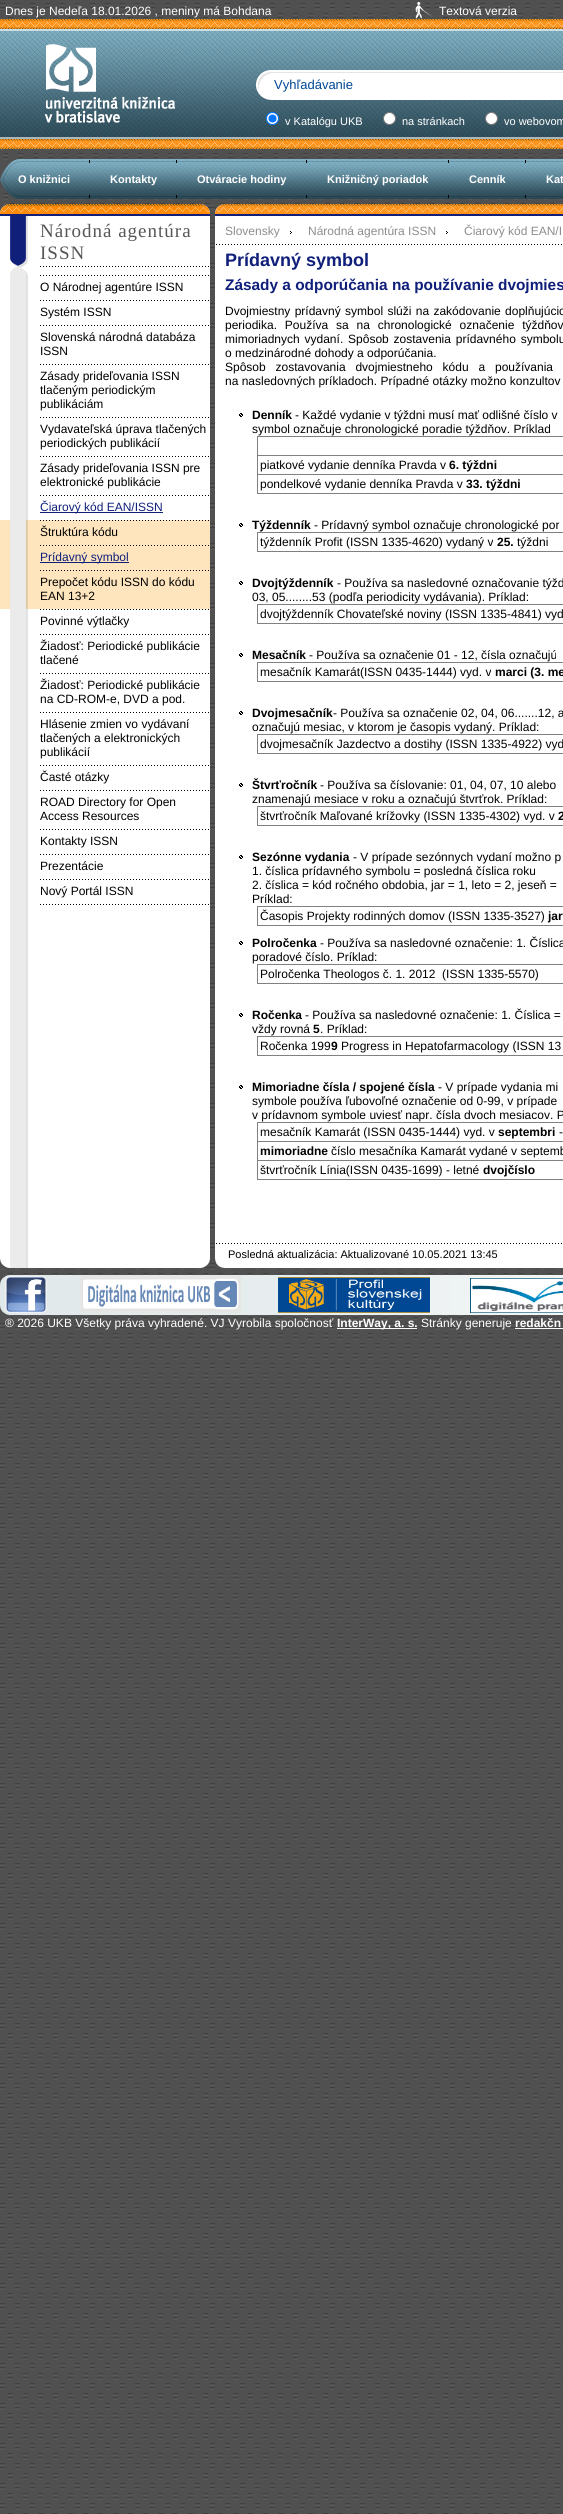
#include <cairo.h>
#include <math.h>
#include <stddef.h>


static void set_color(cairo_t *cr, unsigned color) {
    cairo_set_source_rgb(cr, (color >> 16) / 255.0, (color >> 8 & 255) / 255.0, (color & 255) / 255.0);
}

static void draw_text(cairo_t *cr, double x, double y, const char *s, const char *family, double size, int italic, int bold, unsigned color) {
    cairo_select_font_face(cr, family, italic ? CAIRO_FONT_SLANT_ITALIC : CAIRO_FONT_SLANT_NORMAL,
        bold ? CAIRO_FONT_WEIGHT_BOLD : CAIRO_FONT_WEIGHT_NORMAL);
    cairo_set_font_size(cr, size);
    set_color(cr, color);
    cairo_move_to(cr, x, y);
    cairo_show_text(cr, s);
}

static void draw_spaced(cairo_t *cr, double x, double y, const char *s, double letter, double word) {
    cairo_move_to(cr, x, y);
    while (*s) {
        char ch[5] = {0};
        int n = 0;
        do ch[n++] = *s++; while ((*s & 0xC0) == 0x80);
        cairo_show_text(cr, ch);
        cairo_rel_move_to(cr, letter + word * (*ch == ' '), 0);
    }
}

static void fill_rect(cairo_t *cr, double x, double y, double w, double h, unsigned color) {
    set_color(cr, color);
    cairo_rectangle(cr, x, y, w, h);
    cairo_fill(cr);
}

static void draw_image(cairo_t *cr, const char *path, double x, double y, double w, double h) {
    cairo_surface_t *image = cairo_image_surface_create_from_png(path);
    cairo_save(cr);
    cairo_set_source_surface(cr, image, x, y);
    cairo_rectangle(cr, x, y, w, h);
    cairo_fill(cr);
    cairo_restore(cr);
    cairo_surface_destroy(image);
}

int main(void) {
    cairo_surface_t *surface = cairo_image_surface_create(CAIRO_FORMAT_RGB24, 563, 2514);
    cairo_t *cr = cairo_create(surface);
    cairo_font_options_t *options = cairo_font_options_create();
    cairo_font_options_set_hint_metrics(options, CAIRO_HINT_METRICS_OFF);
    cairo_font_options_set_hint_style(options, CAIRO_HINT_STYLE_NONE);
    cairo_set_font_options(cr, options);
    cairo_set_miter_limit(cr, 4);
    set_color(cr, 0xFFFFFF);
    cairo_paint(cr);
    draw_image(cr, "assets/img1.png", 0, 0, 563, 2514);
    draw_image(cr, "assets/img2.png", 0, 19, 563, 130);
    draw_text(cr, 5, 15, "Dnes je Nedeľa 18.01.2026 , meniny má Bohdana", "Liberation Sans", 12, 0, 0, 0xFFFFFF);
    draw_image(cr, "assets/img3.png", 415, 2, 18, 17);
    draw_text(cr, 439, 15, "Textová verzia", "Liberation Sans", 12, 0, 0, 0xFFFFFF);
    draw_image(cr, "assets/img4.png", 44, 40, 132, 96);
    draw_image(cr, "assets/img5.png", 256, 70, 307, 30);
    draw_text(cr, 274, 89, "Vyhľadávanie", "Liberation Sans", 13, 0, 0, 0x004794);
    set_color(cr, 0xFFFFFF);
    cairo_new_path(cr);
    cairo_arc(cr, 272.5, 118.5, 6, 0, 2 * M_PI);
    cairo_fill_preserve(cr);
    set_color(cr, 0x0075FF);
    cairo_set_line_width(cr, 1);
    cairo_stroke(cr);
    cairo_arc(cr, 272.5, 118.5, 4, 0, 2 * M_PI);
    cairo_fill(cr);
    draw_text(cr, 285, 125, "v Katalógu UKB", "Liberation Sans", 11, 0, 0, 0xFFFFFF);
    cairo_new_path(cr);
    cairo_arc(cr, 389.5, 118.5, 6, 0, 2 * M_PI);
    cairo_fill_preserve(cr);
    set_color(cr, 0x767676);
    cairo_stroke(cr);
    draw_text(cr, 402, 125, "na stránkach", "Liberation Sans", 11, 0, 0, 0xFFFFFF);
    cairo_new_path(cr);
    cairo_arc(cr, 491.5, 118.5, 6, 0, 2 * M_PI);
    cairo_fill_preserve(cr);
    set_color(cr, 0x767676);
    cairo_stroke(cr);
    draw_text(cr, 504, 125, "vo webovom", "Liberation Sans", 11, 0, 0, 0xFFFFFF);
    draw_image(cr, "assets/img6.png", 0, 153, 563, 51);
    draw_image(cr, "assets/img7.png", 89, 160, 1, 38);
    draw_text(cr, 18, 183, "O knižnici", "Liberation Sans", 11, 0, 1, 0xFFFFFF);
    draw_image(cr, "assets/img8.png", 176, 160, 1, 38);
    draw_text(cr, 110, 183, "Kontakty", "Liberation Sans", 11, 0, 1, 0xFFFFFF);
    draw_image(cr, "assets/img8.png", 306, 160, 1, 38);
    draw_text(cr, 197, 183, "Otváracie hodiny", "Liberation Sans", 11, 0, 1, 0xFFFFFF);
    draw_image(cr, "assets/img9.png", 448, 160, 1, 38);
    draw_text(cr, 327, 183, "Knižničný poriadok", "Liberation Sans", 11, 0, 1, 0xFFFFFF);
    draw_image(cr, "assets/img10.png", 525, 160, 1, 38);
    draw_text(cr, 469, 183, "Cenník", "Liberation Sans", 11, 0, 1, 0xFFFFFF);
    draw_text(cr, 546, 183, "Kat", "Liberation Sans", 11, 0, 1, 0xFFFFFF);
    draw_image(cr, "assets/img11.png", 0, 216, 210, 1042);
    draw_image(cr, "assets/img12.png", 0, 204, 210, 12);
    draw_image(cr, "assets/img13.png", 10, 216, 199, 59);
    cairo_select_font_face(cr, "Liberation Serif", CAIRO_FONT_SLANT_NORMAL, CAIRO_FONT_WEIGHT_NORMAL);
    cairo_set_font_size(cr, 19);
    set_color(cr, 0x575757);
    draw_spaced(cr, 40, 237, "Národná agentúra", 1, 0);
    draw_spaced(cr, 40, 259, "ISSN", 1, 0);
    draw_image(cr, "assets/img14.png", 40, 904, 169, 1);
    draw_image(cr, "assets/img14.png", 40, 275, 169, 1);
    draw_text(cr, 40, 291, "O Národnej agentúre ISSN", "Liberation Sans", 12, 0, 0, 0x000000);
    draw_image(cr, "assets/img14.png", 40, 300, 169, 1);
    draw_text(cr, 40, 316, "Systém ISSN", "Liberation Sans", 12, 0, 0, 0x000000);
    draw_image(cr, "assets/img14.png", 40, 325, 169, 1);
    draw_text(cr, 40, 341, "Slovenská národná databáza", "Liberation Sans", 12, 0, 0, 0x000000);
    draw_text(cr, 40, 355, "ISSN", "Liberation Sans", 12, 0, 0, 0x000000);
    draw_image(cr, "assets/img14.png", 40, 364, 169, 1);
    draw_text(cr, 40, 380, "Zásady prideľovania ISSN", "Liberation Sans", 12, 0, 0, 0x000000);
    draw_text(cr, 40, 394, "tlačeným periodickým", "Liberation Sans", 12, 0, 0, 0x000000);
    draw_text(cr, 40, 408, "publikáciám", "Liberation Sans", 12, 0, 0, 0x000000);
    draw_image(cr, "assets/img14.png", 40, 417, 169, 1);
    draw_text(cr, 40, 433, "Vydavateľská úprava tlačených", "Liberation Sans", 12, 0, 0, 0x000000);
    draw_text(cr, 40, 447, "periodických publikácií", "Liberation Sans", 12, 0, 0, 0x000000);
    draw_image(cr, "assets/img14.png", 40, 456, 169, 1);
    draw_text(cr, 40, 472, "Zásady prideľovania ISSN pre", "Liberation Sans", 12, 0, 0, 0x000000);
    draw_text(cr, 40, 486, "elektronické publikácie", "Liberation Sans", 12, 0, 0, 0x000000);
    draw_image(cr, "assets/img14.png", 40, 495, 169, 1);
    fill_rect(cr, 40, 512, 123, 1, 0x0F1F7A);
    draw_text(cr, 40, 511, "Čiarový kód EAN/ISSN", "Liberation Sans", 12, 0, 0, 0x0F1F7A);
    draw_image(cr, "assets/img15.png", 0, 520, 210, 25);
    draw_text(cr, 40, 536, "Štruktúra kódu", "Liberation Sans", 12, 0, 0, 0x000000);
    draw_image(cr, "assets/img15.png", 0, 545, 210, 25);
    fill_rect(cr, 40, 562, 89, 1, 0x0F1F7A);
    draw_text(cr, 40, 561, "Prídavný symbol", "Liberation Sans", 12, 0, 0, 0x0F1F7A);
    draw_image(cr, "assets/img16.png", 0, 570, 210, 39);
    draw_text(cr, 40, 586, "Prepočet kódu ISSN do kódu", "Liberation Sans", 12, 0, 0, 0x000000);
    draw_text(cr, 40, 600, "EAN 13+2", "Liberation Sans", 12, 0, 0, 0x000000);
    draw_image(cr, "assets/img14.png", 40, 609, 169, 1);
    draw_text(cr, 40, 625, "Povinné výtlačky", "Liberation Sans", 12, 0, 0, 0x000000);
    draw_image(cr, "assets/img14.png", 40, 634, 169, 1);
    draw_text(cr, 40, 650, "Žiadosť: Periodické publikácie", "Liberation Sans", 12, 0, 0, 0x000000);
    draw_text(cr, 40, 664, "tlačené", "Liberation Sans", 12, 0, 0, 0x000000);
    draw_image(cr, "assets/img14.png", 40, 673, 169, 1);
    draw_text(cr, 40, 689, "Žiadosť: Periodické publikácie", "Liberation Sans", 12, 0, 0, 0x000000);
    draw_text(cr, 40, 703, "na CD-ROM-e, DVD a pod.", "Liberation Sans", 12, 0, 0, 0x000000);
    draw_image(cr, "assets/img14.png", 40, 712, 169, 1);
    draw_text(cr, 40, 728, "Hlásenie zmien vo vydávaní", "Liberation Sans", 12, 0, 0, 0x000000);
    draw_text(cr, 40, 742, "tlačených a elektronických", "Liberation Sans", 12, 0, 0, 0x000000);
    draw_text(cr, 40, 756, "publikácií", "Liberation Sans", 12, 0, 0, 0x000000);
    draw_image(cr, "assets/img14.png", 40, 765, 169, 1);
    draw_text(cr, 40, 781, "Časté otázky", "Liberation Sans", 12, 0, 0, 0x000000);
    draw_image(cr, "assets/img14.png", 40, 790, 169, 1);
    draw_text(cr, 40, 806, "ROAD Directory for Open", "Liberation Sans", 12, 0, 0, 0x000000);
    draw_text(cr, 40, 820, "Access Resources", "Liberation Sans", 12, 0, 0, 0x000000);
    draw_image(cr, "assets/img14.png", 40, 829, 169, 1);
    draw_text(cr, 40, 845, "Kontakty ISSN", "Liberation Sans", 12, 0, 0, 0x000000);
    draw_image(cr, "assets/img14.png", 40, 854, 169, 1);
    draw_text(cr, 40, 870, "Prezentácie", "Liberation Sans", 12, 0, 0, 0x000000);
    draw_image(cr, "assets/img14.png", 40, 879, 169, 1);
    draw_text(cr, 40, 895, "Nový Portál ISSN", "Liberation Sans", 12, 0, 0, 0x000000);
    draw_image(cr, "assets/img17.png", 0, 1258, 210, 10);
    draw_image(cr, "assets/img18.png", 215, 204, 348, 12);
    fill_rect(cr, 215, 216, 348, 1027, 0xFFFFFF);
    draw_image(cr, "assets/img19.png", 216, 244, 346, 1);
    draw_text(cr, 225, 235, "Slovensky", "Liberation Sans", 12, 0, 0, 0x8D8D8D);
    draw_image(cr, "assets/img20.png", 290, 231, 2, 3);
    draw_text(cr, 308, 235, "Národná agentúra ISSN", "Liberation Sans", 12, 0, 0, 0x8D8D8D);
    draw_image(cr, "assets/img20.png", 446, 231, 2, 3);
    draw_text(cr, 464, 235, "Čiarový kód EAN/I", "Liberation Sans", 12, 0, 0, 0x8D8D8D);
    draw_text(cr, 225, 266, "Prídavný symbol", "Liberation Sans", 18, 0, 1, 0x0F1F7A);
    draw_text(cr, 225, 290, "Zásady a odporúčania na používanie dvojmies", "Liberation Sans", 15.4, 0, 1, 0x0F1F7A);
    cairo_select_font_face(cr, "Liberation Sans", CAIRO_FONT_SLANT_NORMAL, CAIRO_FONT_WEIGHT_NORMAL);
    cairo_set_font_size(cr, 12);
    set_color(cr, 0x000000);
    draw_spaced(cr, 225, 315, "Dvojmiestny prídavný symbol slúži na zakódovanie doplňujúcic", 0, 1);
    draw_spaced(cr, 225, 329, "periodika. Používa sa na chronologické označenie týždňov", 0, 4.5);
    draw_spaced(cr, 225, 343, "mimoriadnych vydaní. Spôsob zostavenia prídavného symbolu", 0, 1.5);
    draw_text(cr, 225, 357, "o medzinárodné dohody a odporúčania.", "Liberation Sans", 12, 0, 0, 0x000000);
    draw_spaced(cr, 225, 371, "Spôsob zostavovania dvojmiestneho kódu a používania", 0, 6.5);
    draw_text(cr, 225, 385, "na nasledovných príkladoch. Prípadné otázky možno konzultov", "Liberation Sans", 12, 0, 0, 0x000000);
    draw_image(cr, "assets/img21.png", 239, 413, 4, 4);
    draw_text(cr, 252, 419, "Denník", "Liberation Sans", 12, 0, 1, 0x000000);
    draw_text(cr, 295, 419, "- Každé vydanie v týždni musí mať odlišné číslo v", "Liberation Sans", 12, 0, 0, 0x000000);
    draw_text(cr, 252, 433, "symbol označuje chronologické poradie týždňov. Príklad", "Liberation Sans", 12, 0, 0, 0x000000);
    fill_rect(cr, 257, 436, 306, 1, 0x808080);
    fill_rect(cr, 257, 493, 306, 1, 0x808080);
    fill_rect(cr, 257, 436, 1, 58, 0x808080);
    fill_rect(cr, 257, 455, 306, 1, 0x808080);
    draw_text(cr, 260, 469, "piatkové vydanie denníka Pravda v", "Liberation Sans", 12, 0, 0, 0x000000);
    draw_text(cr, 449, 469, "6. týždni", "Liberation Sans", 12, 0, 1, 0x000000);
    fill_rect(cr, 257, 474, 306, 1, 0x808080);
    draw_text(cr, 260, 488, "pondelkové vydanie denníka Pravda v", "Liberation Sans", 12, 0, 0, 0x000000);
    draw_text(cr, 466, 488, "33. týždni", "Liberation Sans", 12, 0, 1, 0x000000);
    draw_image(cr, "assets/img21.png", 239, 523, 4, 4);
    draw_text(cr, 252, 529, "Týždenník", "Liberation Sans", 12, 0, 1, 0x000000);
    draw_text(cr, 314, 529, "- Prídavný symbol označuje chronologické por", "Liberation Sans", 12, 0, 0, 0x000000);
    fill_rect(cr, 257, 532, 306, 1, 0x808080);
    fill_rect(cr, 257, 551, 306, 1, 0x808080);
    fill_rect(cr, 257, 532, 1, 20, 0x808080);
    draw_text(cr, 260, 546, "týždenník Profit (ISSN 1335-4620) vydaný v", "Liberation Sans", 12, 0, 0, 0x000000);
    draw_text(cr, 497, 546, "25.", "Liberation Sans", 12, 0, 1, 0x000000);
    draw_text(cr, 517, 546, "týždni", "Liberation Sans", 12, 0, 0, 0x000000);
    draw_image(cr, "assets/img21.png", 239, 581, 4, 4);
    draw_text(cr, 252, 587, "Dvojtýždenník", "Liberation Sans", 12, 0, 1, 0x000000);
    draw_text(cr, 337, 587, "- Používa sa nasledovné označovanie týžd", "Liberation Sans", 12, 0, 0, 0x000000);
    draw_text(cr, 252, 601, "03, 05........53 (podľa periodicity vydávania). Príklad:", "Liberation Sans", 12, 0, 0, 0x000000);
    fill_rect(cr, 257, 604, 306, 1, 0x808080);
    fill_rect(cr, 257, 623, 306, 1, 0x808080);
    fill_rect(cr, 257, 604, 1, 20, 0x808080);
    draw_text(cr, 260, 618, "dvojtýždenník Chovateľské noviny (ISSN 1335-4841) vyd", "Liberation Sans", 12, 0, 0, 0x000000);
    draw_image(cr, "assets/img21.png", 239, 653, 4, 4);
    draw_text(cr, 252, 659, "Mesačník", "Liberation Sans", 12, 0, 1, 0x000000);
    draw_text(cr, 309, 659, "- Používa sa označenie 01 - 12, čísla označujú", "Liberation Sans", 12, 0, 0, 0x000000);
    fill_rect(cr, 257, 662, 306, 1, 0x808080);
    fill_rect(cr, 257, 681, 306, 1, 0x808080);
    fill_rect(cr, 257, 662, 1, 20, 0x808080);
    draw_text(cr, 260, 676, "mesačník Kamarát(ISSN 0435-1444) vyd. v", "Liberation Sans", 12, 0, 0, 0x000000);
    draw_text(cr, 495, 676, "marci (3. me", "Liberation Sans", 12, 0, 1, 0x000000);
    draw_image(cr, "assets/img21.png", 239, 711, 4, 4);
    draw_text(cr, 252, 717, "Dvojmesačník", "Liberation Sans", 12, 0, 1, 0x000000);
    draw_text(cr, 333, 717, "- Používa sa označenie 02, 04, 06.......12, a", "Liberation Sans", 12, 0, 0, 0x000000);
    draw_text(cr, 252, 731, "označujú mesiac, v ktorom je časopis vydaný. Príklad:", "Liberation Sans", 12, 0, 0, 0x000000);
    fill_rect(cr, 257, 734, 306, 1, 0x808080);
    fill_rect(cr, 257, 753, 306, 1, 0x808080);
    fill_rect(cr, 257, 734, 1, 20, 0x808080);
    draw_text(cr, 260, 748, "dvojmesačník Jazdectvo a dostihy (ISSN 1335-4922) vyd", "Liberation Sans", 12, 0, 0, 0x000000);
    draw_image(cr, "assets/img21.png", 239, 783, 4, 4);
    draw_text(cr, 252, 789, "Štvrťročník", "Liberation Sans", 12, 0, 1, 0x000000);
    draw_text(cr, 320, 789, "- Používa sa číslovanie: 01, 04, 07, 10 alebo", "Liberation Sans", 12, 0, 0, 0x000000);
    draw_text(cr, 252, 803, "znamenajú mesiace v roku a označujú štvrťrok. Príklad:", "Liberation Sans", 12, 0, 0, 0x000000);
    fill_rect(cr, 257, 806, 306, 1, 0x808080);
    fill_rect(cr, 257, 825, 306, 1, 0x808080);
    fill_rect(cr, 257, 806, 1, 20, 0x808080);
    draw_text(cr, 260, 820, "štvrťročník Maľované krížovky (ISSN 1335-4302) vyd. v", "Liberation Sans", 12, 0, 0, 0x000000);
    draw_text(cr, 558, 820, "2", "Liberation Sans", 12, 0, 1, 0x000000);
    draw_image(cr, "assets/img21.png", 239, 855, 4, 4);
    draw_text(cr, 252, 861, "Sezónne vydania", "Liberation Sans", 12, 0, 1, 0x000000);
    draw_text(cr, 353, 861, "- V prípade sezónnych vydaní možno p", "Liberation Sans", 12, 0, 0, 0x000000);
    draw_text(cr, 252, 875, "1. číslica prídavného symbolu = posledná číslica roku", "Liberation Sans", 12, 0, 0, 0x000000);
    draw_text(cr, 252, 889, "2. číslica = kód ročného obdobia, jar = 1, leto = 2, jeseň =", "Liberation Sans", 12, 0, 0, 0x000000);
    draw_text(cr, 252, 903, "Príklad:", "Liberation Sans", 12, 0, 0, 0x000000);
    fill_rect(cr, 257, 906, 306, 1, 0x808080);
    fill_rect(cr, 257, 925, 306, 1, 0x808080);
    fill_rect(cr, 257, 906, 1, 20, 0x808080);
    draw_text(cr, 260, 920, "Časopis Projekty rodinných domov (ISSN 1335-3527)", "Liberation Sans", 12, 0, 0, 0x000000);
    draw_text(cr, 548, 920, "jar", "Liberation Sans", 12, 0, 1, 0x000000);
    draw_image(cr, "assets/img21.png", 239, 941, 4, 4);
    draw_text(cr, 252, 947, "Polročenka", "Liberation Sans", 12, 0, 1, 0x000000);
    draw_text(cr, 320, 947, "- Používa sa nasledovné označenie: 1. Číslica", "Liberation Sans", 12, 0, 0, 0x000000);
    draw_text(cr, 252, 961, "poradové číslo. Príklad:", "Liberation Sans", 12, 0, 0, 0x000000);
    fill_rect(cr, 257, 964, 306, 1, 0x808080);
    fill_rect(cr, 257, 983, 306, 1, 0x808080);
    fill_rect(cr, 257, 964, 1, 20, 0x808080);
    draw_text(cr, 260, 978, "Polročenka Theologos č. 1. 2012  (ISSN 1335-5570)", "Liberation Sans", 12, 0, 0, 0x000000);
    draw_image(cr, "assets/img21.png", 239, 1013, 4, 4);
    draw_text(cr, 252, 1019, "Ročenka", "Liberation Sans", 12, 0, 1, 0x000000);
    draw_text(cr, 305, 1019, "- Používa sa nasledovné označenie: 1. Číslica =", "Liberation Sans", 12, 0, 0, 0x000000);
    draw_text(cr, 252, 1033, "vždy rovná", "Liberation Sans", 12, 0, 0, 0x000000);
    draw_text(cr, 313, 1033, "5", "Liberation Sans", 12, 0, 1, 0x000000);
    draw_text(cr, 320, 1033, ". Príklad:", "Liberation Sans", 12, 0, 0, 0x000000);
    fill_rect(cr, 257, 1036, 306, 1, 0x808080);
    fill_rect(cr, 257, 1055, 306, 1, 0x808080);
    fill_rect(cr, 257, 1036, 1, 20, 0x808080);
    draw_text(cr, 260, 1050, "Ročenka 199", "Liberation Sans", 12, 0, 0, 0x000000);
    draw_text(cr, 331, 1050, "9", "Liberation Sans", 12, 0, 1, 0x000000);
    draw_text(cr, 341, 1050, "Progress in Hepatofarmacology (ISSN 13", "Liberation Sans", 12, 0, 0, 0x000000);
    draw_image(cr, "assets/img21.png", 239, 1085, 4, 4);
    draw_text(cr, 252, 1091, "Mimoriadne čísla / spojené čísla", "Liberation Sans", 12, 0, 1, 0x000000);
    draw_text(cr, 438, 1091, "- V prípade vydania mi", "Liberation Sans", 12, 0, 0, 0x000000);
    draw_text(cr, 252, 1105, "symbole používa ľubovoľné označenie od 0-99, v prípade", "Liberation Sans", 12, 0, 0, 0x000000);
    draw_text(cr, 252, 1119, "v prídavnom symbole uviesť napr. čísla dvoch mesiacov. P", "Liberation Sans", 12, 0, 0, 0x000000);
    fill_rect(cr, 257, 1122, 306, 1, 0x808080);
    fill_rect(cr, 257, 1179, 306, 1, 0x808080);
    fill_rect(cr, 257, 1122, 1, 58, 0x808080);
    draw_text(cr, 260, 1136, "mesačník Kamarát (ISSN 0435-1444) vyd. v", "Liberation Sans", 12, 0, 0, 0x000000);
    draw_text(cr, 498, 1136, "septembri", "Liberation Sans", 12, 0, 1, 0x000000);
    draw_text(cr, 559, 1136, "-", "Liberation Sans", 12, 0, 0, 0x000000);
    fill_rect(cr, 257, 1141, 306, 1, 0x808080);
    draw_text(cr, 260, 1155, "mimoriadne", "Liberation Sans", 12, 0, 1, 0x000000);
    draw_text(cr, 331, 1155, "číslo mesačníka Kamarát vydané v septemb", "Liberation Sans", 12, 0, 0, 0x000000);
    fill_rect(cr, 257, 1160, 306, 1, 0x808080);
    draw_text(cr, 260, 1174, "štvrťročník Línia(ISSN 0435-1699) - letné", "Liberation Sans", 12, 0, 0, 0x000000);
    draw_text(cr, 483, 1174, "dvojčíslo", "Liberation Sans", 12, 0, 1, 0x000000);
    draw_image(cr, "assets/img22.png", 215, 1243, 348, 25);
    draw_text(cr, 228, 1258, "Posledná aktualizácia: Aktualizované 10.05.2021 13:45", "Liberation Sans", 11, 0, 0, 0x000000);
    draw_image(cr, "assets/img23.png", 0, 1275, 563, 40);
    draw_image(cr, "assets/img24.png", 5, 1276, 42, 37);
    draw_image(cr, "assets/img25.png", 80, 1275, 161, 38);
    draw_image(cr, "assets/img26.png", 278, 1277, 152, 36);
    draw_image(cr, "assets/img27.png", 470, 1278, 93, 35);
    draw_text(cr, 5, 1327, "® 2026 UKB Všetky práva vyhradené. VJ Vyrobila spoločnosť", "Liberation Sans", 12, 0, 0, 0xFFFFFF);
    fill_rect(cr, 337, 1328, 80, 1, 0xFBFBFB);
    draw_text(cr, 337, 1327, "InterWay, a. s.", "Liberation Sans", 12, 0, 1, 0xFFFFFF);
    draw_text(cr, 421, 1327, "Stránky generuje", "Liberation Sans", 12, 0, 0, 0xFFFFFF);
    draw_text(cr, 515, 1327, "redakčn", "Liberation Sans", 12, 0, 1, 0xFFFFFF);
    fill_rect(cr, 515, 1328, 48, 1, 0xFBFBFB);
    cairo_surface_write_to_png(surface, "output.png");
    cairo_font_options_destroy(options);
    cairo_destroy(cr);
    cairo_surface_destroy(surface);
    return 0;
}
